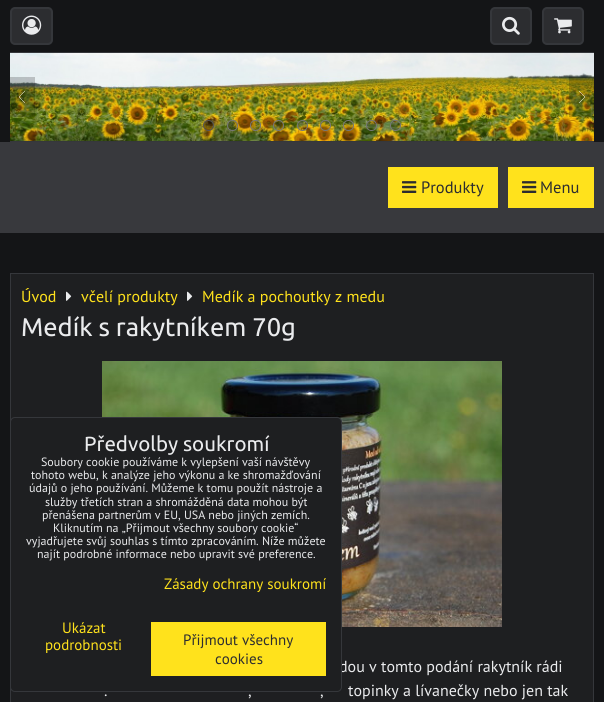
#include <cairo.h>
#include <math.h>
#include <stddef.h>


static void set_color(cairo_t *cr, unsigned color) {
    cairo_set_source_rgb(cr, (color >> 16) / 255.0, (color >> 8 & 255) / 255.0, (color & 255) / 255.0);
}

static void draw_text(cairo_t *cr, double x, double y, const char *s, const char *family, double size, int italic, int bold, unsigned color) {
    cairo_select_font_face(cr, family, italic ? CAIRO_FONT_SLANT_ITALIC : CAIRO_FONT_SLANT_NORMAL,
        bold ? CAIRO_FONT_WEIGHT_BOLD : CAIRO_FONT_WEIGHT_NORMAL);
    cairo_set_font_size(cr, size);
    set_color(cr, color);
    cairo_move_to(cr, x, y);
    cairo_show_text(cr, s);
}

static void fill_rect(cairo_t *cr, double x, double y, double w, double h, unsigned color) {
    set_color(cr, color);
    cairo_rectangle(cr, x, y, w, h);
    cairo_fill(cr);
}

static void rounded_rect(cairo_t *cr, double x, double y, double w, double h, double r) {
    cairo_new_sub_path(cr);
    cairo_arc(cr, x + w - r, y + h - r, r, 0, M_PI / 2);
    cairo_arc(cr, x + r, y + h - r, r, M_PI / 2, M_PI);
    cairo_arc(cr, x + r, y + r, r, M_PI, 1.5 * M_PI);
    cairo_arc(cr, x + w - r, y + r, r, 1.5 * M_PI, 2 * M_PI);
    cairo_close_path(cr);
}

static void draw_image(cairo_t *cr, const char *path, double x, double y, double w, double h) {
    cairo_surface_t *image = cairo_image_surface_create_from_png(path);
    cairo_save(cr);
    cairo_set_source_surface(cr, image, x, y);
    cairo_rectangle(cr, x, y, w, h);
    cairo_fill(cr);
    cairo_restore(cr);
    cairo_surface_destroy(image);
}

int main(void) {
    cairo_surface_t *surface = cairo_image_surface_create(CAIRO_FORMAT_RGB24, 604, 702);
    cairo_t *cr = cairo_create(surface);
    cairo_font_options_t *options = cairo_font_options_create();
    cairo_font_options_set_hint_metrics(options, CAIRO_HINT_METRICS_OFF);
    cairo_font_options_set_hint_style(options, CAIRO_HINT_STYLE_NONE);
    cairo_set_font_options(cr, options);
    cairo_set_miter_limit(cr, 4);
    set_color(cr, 0x141517);
    cairo_paint(cr);
    set_color(cr, 0x2C2D30);
    rounded_rect(cr, 11, 8, 41, 36, 4);
    cairo_fill_preserve(cr);
    set_color(cr, 0x35373B);
    cairo_stroke(cr);
    draw_image(cr, "assets/img1.png", 22, 15, 20, 20);
    set_color(cr, 0x2C2D30);
    rounded_rect(cr, 491, 8, 40, 36, 4);
    cairo_fill_preserve(cr);
    set_color(cr, 0x35373B);
    cairo_stroke(cr);
    draw_image(cr, "assets/img2.png", 502, 16, 18, 19);
    set_color(cr, 0x2C2D30);
    rounded_rect(cr, 543, 8, 40, 36, 4);
    cairo_fill_preserve(cr);
    set_color(cr, 0x35373B);
    cairo_stroke(cr);
    draw_image(cr, "assets/img3.png", 554, 18, 18, 16);
    fill_rect(cr, 10, 52, 584, 1, 0x35373B);
    fill_rect(cr, 10, 141, 584, 1, 0x35373B);
    draw_image(cr, "assets/img4.png", 10, 53, 584, 88);
    cairo_set_source_rgba(cr, 0, 0, 0, 0.2);
    cairo_rectangle(cr, 10, 77, 25, 40);
    cairo_fill(cr);
    draw_image(cr, "assets/img5.png", 19, 91, 6, 12);
    cairo_rectangle(cr, 569, 77, 25, 40);
    cairo_fill(cr);
    draw_image(cr, "assets/img6.png", 579, 91, 6, 12);
    cairo_set_source_rgba(cr, 0, 0, 0, 0.4);
    cairo_arc(cr, 208.5, 125.5, 5, 0, 2 * M_PI);
    cairo_fill_preserve(cr);
    set_color(cr, 0x555555);
    cairo_set_line_width(cr, 1);
    cairo_stroke(cr);
    cairo_set_source_rgba(cr, 0, 0, 0, 0.2);
    cairo_arc(cr, 232.5, 125.5, 5, 0, 2 * M_PI);
    cairo_fill_preserve(cr);
    set_color(cr, 0x777777);
    cairo_stroke(cr);
    cairo_set_source_rgba(cr, 0, 0, 0, 0.2);
    cairo_arc(cr, 255.5, 125.5, 5, 0, 2 * M_PI);
    cairo_fill_preserve(cr);
    set_color(cr, 0x777777);
    cairo_stroke(cr);
    cairo_set_source_rgba(cr, 0, 0, 0, 0.2);
    cairo_arc(cr, 278.5, 125.5, 5, 0, 2 * M_PI);
    cairo_fill_preserve(cr);
    set_color(cr, 0x777777);
    cairo_stroke(cr);
    cairo_set_source_rgba(cr, 0, 0, 0, 0.2);
    cairo_arc(cr, 302.5, 125.5, 5, 0, 2 * M_PI);
    cairo_fill_preserve(cr);
    set_color(cr, 0x777777);
    cairo_stroke(cr);
    cairo_set_source_rgba(cr, 0, 0, 0, 0.2);
    cairo_arc(cr, 325.5, 125.5, 5, 0, 2 * M_PI);
    cairo_fill_preserve(cr);
    set_color(cr, 0x777777);
    cairo_stroke(cr);
    cairo_set_source_rgba(cr, 0, 0, 0, 0.2);
    cairo_arc(cr, 348.5, 125.5, 5, 0, 2 * M_PI);
    cairo_fill_preserve(cr);
    set_color(cr, 0x777777);
    cairo_stroke(cr);
    cairo_set_source_rgba(cr, 0, 0, 0, 0.2);
    cairo_arc(cr, 371.5, 125.5, 5, 0, 2 * M_PI);
    cairo_fill_preserve(cr);
    set_color(cr, 0x777777);
    cairo_stroke(cr);
    cairo_set_source_rgba(cr, 0, 0, 0, 0.2);
    cairo_arc(cr, 395.5, 125.5, 5, 0, 2 * M_PI);
    cairo_fill_preserve(cr);
    set_color(cr, 0x777777);
    cairo_stroke(cr);
    fill_rect(cr, 0, 142, 604, 91, 0x38393D);
    fill_rect(cr, 388, 167, 110, 41, 0xFFE21C);
    draw_image(cr, "assets/img7.png", 402, 181, 15, 12);
    draw_text(cr, 421, 193, "Produkty", "PT Sans", 16.5, 0, 0, 0x2C2D30);
    fill_rect(cr, 508, 167, 86, 41, 0xFFE21C);
    draw_image(cr, "assets/img7.png", 522, 181, 15, 12);
    draw_text(cr, 540, 193, "Menu", "PT Sans", 16.5, 0, 0, 0x2C2D30);
    set_color(cr, 0x1E1F21);
    cairo_rectangle(cr, 10.5, 273.5, 583, 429);
    cairo_fill_preserve(cr);
    set_color(cr, 0x35373B);
    cairo_stroke(cr);
    draw_text(cr, 21, 302, "Úvod", "PT Sans", 16, 0, 0, 0xFFE21C);
    draw_image(cr, "assets/img8.png", 66, 291, 6, 10);
    draw_text(cr, 81, 302, "včelí produkty", "PT Sans", 16, 0, 0, 0xFFE21C);
    draw_image(cr, "assets/img8.png", 187, 291, 6, 10);
    draw_text(cr, 202, 302, "Medík a pochoutky z medu", "PT Sans", 16, 0, 0, 0xFFE21C);
    draw_text(cr, 21, 336, "Medík s rakytníkem 70g", "Ubuntu", 25.6, 0, 0, 0xEAEBED);
    draw_image(cr, "assets/img9.png", 102, 361, 400, 266);
    draw_text(cr, 339, 672, "dou v tomto podání rakytník rádi", "PT Sans", 16, 0, 0, 0xEAEBED);
    draw_text(cr, 104, 696, ".", "PT Sans", 16, 0, 0, 0xEAEBED);
    draw_text(cr, 248, 696, ",", "PT Sans", 16, 0, 0, 0xEAEBED);
    draw_text(cr, 320, 696, ",", "PT Sans", 16, 0, 0, 0xEAEBED);
    draw_text(cr, 348, 696, "topinky a lívanečky nebo jen tak", "PT Sans", 16, 0, 0, 0xEAEBED);
    set_color(cr, 0x1E1F21);
    rounded_rect(cr, 10.5, 417.5, 331, 274, 4.5);
    cairo_fill_preserve(cr);
    set_color(cr, 0x35373B);
    cairo_stroke(cr);
    draw_text(cr, 84, 451, "Předvolby soukromí", "Ubuntu", 20.5, 0, 0, 0xEAEBED);
    draw_text(cr, 41, 466, "Soubory cookie používáme k vylepšení vaší návštěvy", "PT Sans", 12, 0, 0, 0xEAEBED);
    draw_text(cr, 31, 479, "tohoto webu, k analýze jeho výkonu a ke shromažďování", "PT Sans", 12, 0, 0, 0xEAEBED);
    draw_text(cr, 29, 492, "údajů o jeho používání. Můžeme k tomu použít nástroje a", "PT Sans", 12, 0, 0, 0xEAEBED);
    draw_text(cr, 45, 506, "služby třetích stran a shromážděná data mohou být", "PT Sans", 12, 0, 0, 0xEAEBED);
    draw_text(cr, 42, 519, "přenášena partnerům v EU, USA nebo jiných zemích.", "PT Sans", 12, 0, 0, 0xEAEBED);
    draw_text(cr, 53, 532, "Kliknutím na „Přijmout všechny soubory cookie“", "PT Sans", 12, 0, 0, 0xEAEBED);
    draw_text(cr, 26, 545, "vyjadřujete svůj souhlas s tímto zpracováním. Níže můžete", "PT Sans", 12, 0, 0, 0xEAEBED);
    draw_text(cr, 37, 558, "najít podrobné informace nebo upravit své preference.", "PT Sans", 12, 0, 0, 0xEAEBED);
    draw_text(cr, 164, 589, "Zásady ochrany soukromí", "PT Sans", 15, 0, 0, 0xFFE21C);
    draw_text(cr, 62, 633, "Ukázat", "PT Sans", 15, 0, 0, 0xFFE21C);
    draw_text(cr, 45, 650, "podrobnosti", "PT Sans", 15, 0, 0, 0xFFE21C);
    fill_rect(cr, 151, 622, 175, 54, 0xFFE21C);
    draw_text(cr, 183, 645, "Přijmout všechny", "PT Sans", 15, 0, 0, 0x2C2D30);
    draw_text(cr, 215, 664, "cookies", "PT Sans", 15, 0, 0, 0x2C2D30);
    cairo_surface_write_to_png(surface, "output.png");
    cairo_font_options_destroy(options);
    cairo_destroy(cr);
    cairo_surface_destroy(surface);
    return 0;
}
